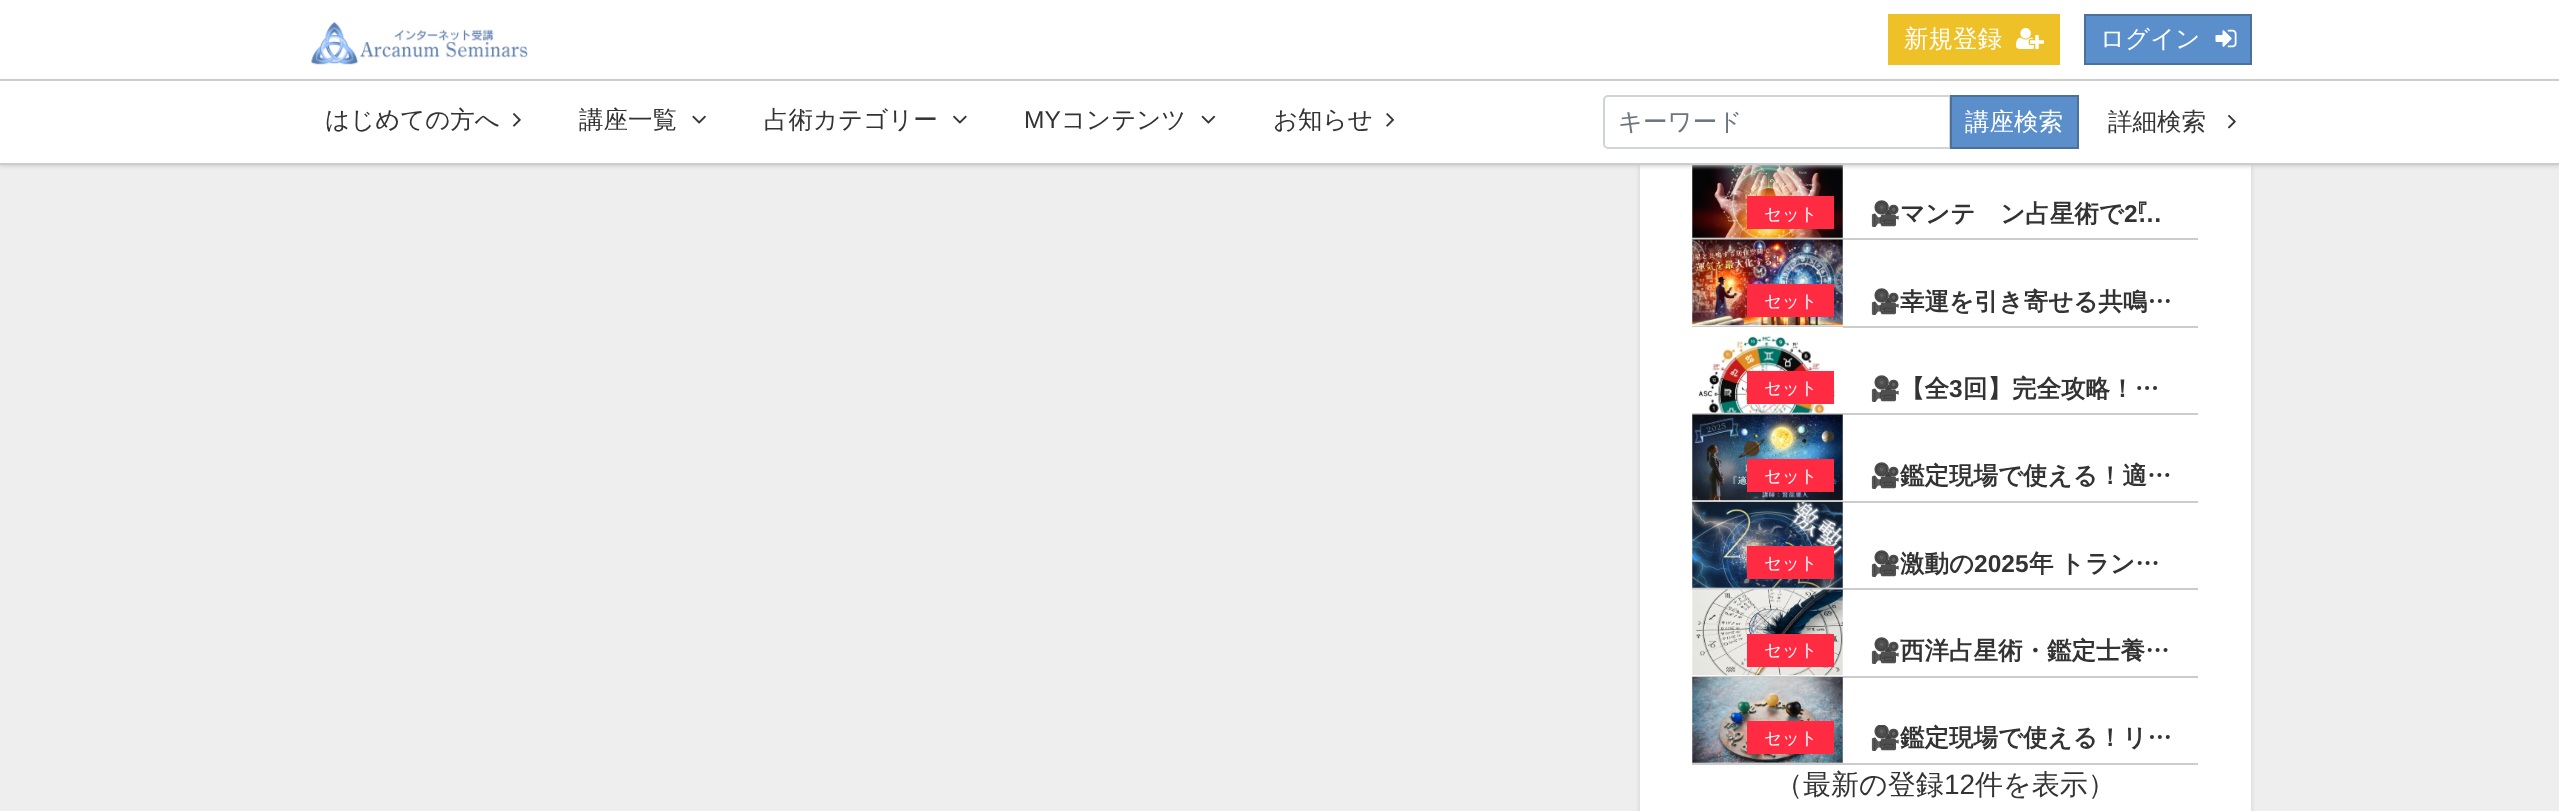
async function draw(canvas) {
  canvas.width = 2559
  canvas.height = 811
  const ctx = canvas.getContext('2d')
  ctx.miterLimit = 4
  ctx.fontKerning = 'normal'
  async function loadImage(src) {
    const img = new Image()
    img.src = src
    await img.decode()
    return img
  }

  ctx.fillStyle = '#eee'
  ctx.fillRect(0, 0, 2559, 811)
  ctx.fillStyle = '#ccc'
  ctx.filter = 'blur(2px)'
  ctx.beginPath()
  ctx.rect(1640, -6, 611, 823)
  ctx.fill()
  ctx.filter = 'none'
  ctx.fillStyle = '#fff'
  ctx.fillRect(0, 0, 2559, 163)
  ctx.fillStyle = '#ccc'
  ctx.fillRect(0, 163, 2559, 2)
  ctx.drawImage(await loadImage('image0.png'), 311, 22, 217, 43)
  ctx.fillStyle = '#efc129'
  ctx.fillRect(1888, 14, 172, 51)
  ctx.font = '500 24.5px WenQuanYi Zen Hei'
  ctx.fillStyle = '#fff'
  ctx.fillText('新規登録', 1904, 47)
  ctx.drawImage(await loadImage('image1.png'), 2016, 28, 28, 21)
  ctx.fillStyle = '#5b8fcb'
  ctx.beginPath()
  ctx.rect(2085, 15, 166, 49)
  ctx.fill()
  ctx.strokeStyle = '#4b709b'
  ctx.lineWidth = 2
  ctx.stroke()
  ctx.fillStyle = '#fff'
  ctx.fillText('ログイン', 2100, 47)
  ctx.drawImage(await loadImage('image2.png'), 2215, 29, 22, 19)
  ctx.fillRect(1640, 165, 611, 646)
  ctx.drawImage(await loadImage('image9.png'), 1692, 165, 151, 73)
  ctx.save()
  ctx.beginPath()
  ctx.moveTo(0, 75)
  ctx.lineTo(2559, 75)
  ctx.lineTo(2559, 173)
  ctx.lineTo(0, 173)
  ctx.closePath()
  ctx.moveTo(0, 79)
  ctx.lineTo(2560, 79)
  ctx.lineTo(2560, 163)
  ctx.lineTo(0, 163)
  ctx.closePath()
  ctx.clip('evenodd')
  ctx.fillStyle = '#ccc'
  ctx.filter = 'blur(2px)'
  ctx.beginPath()
  ctx.rect(0, 82, 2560, 84)
  ctx.fill()
  ctx.filter = 'none'
  ctx.restore()
  ctx.fillStyle = '#ccc'
  ctx.fillRect(0, 79, 2559, 2)
  ctx.fillStyle = '#333'
  ctx.fillText('はじめての方へ', 325, 128)
  ctx.drawImage(await loadImage('image3.png'), 513, 113, 8, 14)
  ctx.fillText('講座一覧', 579, 128)
  ctx.drawImage(await loadImage('image4.png'), 692, 115, 14, 9)
  ctx.fillText('占術カテゴリー', 764, 128)
  ctx.drawImage(await loadImage('image5.png'), 953, 115, 14, 9)
  ctx.font = '24.5px Liberation Sans'
  ctx.fillText('MY', 1024, 128)
  ctx.font = '500 24.5px WenQuanYi Zen Hei'
  ctx.fillText('コンテンツ', 1061, 128)
  ctx.drawImage(await loadImage('image6.png'), 1201, 115, 15, 9)
  ctx.fillText('お知らせ', 1273, 128)
  ctx.drawImage(await loadImage('image7.png'), 1386, 113, 9, 14)
  ctx.beginPath()
  ctx.roundRect(1604, 96, 346, 52, [4, 0, 0, 4])
  ctx.strokeStyle = '#ced4da'
  ctx.stroke()
  ctx.fillStyle = '#6c757d'
  ctx.fillText('キーワード', 1618, 130)
  ctx.fillStyle = '#5b8fcb'
  ctx.beginPath()
  ctx.rect(1951, 96, 127, 52)
  ctx.fill()
  ctx.strokeStyle = '#4b709b'
  ctx.stroke()
  ctx.fillStyle = '#fff'
  ctx.fillText('講座検索', 1965, 130)
  ctx.fillStyle = '#333'
  ctx.fillText('詳細検索', 2108, 130)
  ctx.drawImage(await loadImage('image8.png'), 2228, 114, 8, 15)
  ctx.fillStyle = '#ccc'
  ctx.fillRect(1692, 238, 506, 2)
  ctx.fillStyle = '#ff2b43'
  ctx.fillRect(1747, 196, 87, 33)
  ctx.font = '500 17.5px WenQuanYi Zen Hei'
  ctx.fillStyle = '#fff'
  ctx.fillText('セット', 1764, 220)
  ctx.font = 'bold 24.5px Noto Color Emoji'
  ctx.fillStyle = '#333'
  ctx.fillText('🎥', 1870, 222)
  ctx.font = 'bold 24.5px WenQuanYi Zen Hei'
  ctx.fillText('マンデン占星術で『', 1900, 222)
  ctx.font = 'bold 24.5px Liberation Sans'
  ctx.fillText('2…', 2124, 222)
  ctx.fillStyle = '#ccc'
  ctx.fillRect(1692, 326, 506, 2)
  ctx.drawImage(await loadImage('image10.png'), 1692, 239, 151, 87)
  ctx.fillStyle = '#ff2b43'
  ctx.fillRect(1747, 284, 87, 33)
  ctx.font = '500 17.5px WenQuanYi Zen Hei'
  ctx.fillStyle = '#fff'
  ctx.fillText('セット', 1764, 307)
  ctx.font = 'bold 24.5px Noto Color Emoji'
  ctx.fillStyle = '#333'
  ctx.fillText('🎥', 1870, 310)
  ctx.font = 'bold 24.5px WenQuanYi Zen Hei'
  ctx.fillText('幸運を引き寄せる共鳴…', 1900, 310)
  ctx.fillStyle = '#ccc'
  ctx.fillRect(1692, 413, 506, 2)
  ctx.drawImage(await loadImage('image11.png'), 1692, 327, 151, 86)
  ctx.fillStyle = '#ff2b43'
  ctx.fillRect(1747, 371, 87, 33)
  ctx.font = '500 17.5px WenQuanYi Zen Hei'
  ctx.fillStyle = '#fff'
  ctx.fillText('セット', 1764, 394)
  ctx.font = 'bold 24.5px Noto Color Emoji'
  ctx.fillStyle = '#333'
  ctx.fillText('🎥', 1870, 397)
  ctx.font = 'bold 24.5px WenQuanYi Zen Hei'
  ctx.fillText('【全', 1900, 397)
  ctx.font = 'bold 24.5px Liberation Sans'
  ctx.fillText('3', 1949, 397)
  ctx.font = 'bold 24.5px WenQuanYi Zen Hei'
  ctx.fillText('回】完全攻略！…', 1963, 397)
  ctx.fillStyle = '#ccc'
  ctx.fillRect(1692, 501, 506, 2)
  ctx.drawImage(await loadImage('image12.png'), 1692, 414, 151, 87)
  ctx.fillStyle = '#ff2b43'
  ctx.fillRect(1747, 459, 87, 33)
  ctx.font = '500 17.5px WenQuanYi Zen Hei'
  ctx.fillStyle = '#fff'
  ctx.fillText('セット', 1764, 482)
  ctx.font = 'bold 24.5px Noto Color Emoji'
  ctx.fillStyle = '#333'
  ctx.fillText('🎥', 1870, 484)
  ctx.font = 'bold 24.5px WenQuanYi Zen Hei'
  ctx.fillText('鑑定現場で使える！適…', 1900, 484)
  ctx.fillStyle = '#ccc'
  ctx.fillRect(1692, 588, 506, 2)
  ctx.drawImage(await loadImage('image13.png'), 1692, 502, 151, 86)
  ctx.fillStyle = '#ff2b43'
  ctx.fillRect(1747, 546, 87, 33)
  ctx.font = '500 17.5px WenQuanYi Zen Hei'
  ctx.fillStyle = '#fff'
  ctx.fillText('セット', 1764, 569)
  ctx.font = 'bold 24.5px Noto Color Emoji'
  ctx.fillStyle = '#333'
  ctx.fillText('🎥', 1870, 572)
  ctx.font = 'bold 24.5px WenQuanYi Zen Hei'
  ctx.fillText('激動の', 1900, 572)
  ctx.font = 'bold 24.5px Liberation Sans'
  ctx.fillText('2025', 1974, 572)
  ctx.wordSpacing = '-1px'
  ctx.font = 'bold 24.5px WenQuanYi Zen Hei'
  ctx.fillText('年 トラン…', 2029, 572)
  ctx.fillStyle = '#ccc'
  ctx.fillRect(1692, 676, 506, 2)
  ctx.drawImage(await loadImage('image14.png'), 1692, 589, 151, 87)
  ctx.fillStyle = '#ff2b43'
  ctx.fillRect(1747, 634, 87, 33)
  ctx.wordSpacing = '0px'
  ctx.font = '500 17.5px WenQuanYi Zen Hei'
  ctx.fillStyle = '#fff'
  ctx.fillText('セット', 1764, 656)
  ctx.font = 'bold 24.5px Noto Color Emoji'
  ctx.fillStyle = '#333'
  ctx.fillText('🎥', 1870, 659)
  ctx.font = 'bold 24.5px WenQuanYi Zen Hei'
  ctx.fillText('西洋占星術・鑑定士養…', 1900, 659)
  ctx.fillStyle = '#ccc'
  ctx.fillRect(1692, 763, 506, 2)
  ctx.drawImage(await loadImage('image15.png'), 1692, 677, 151, 86)
  ctx.fillStyle = '#ff2b43'
  ctx.fillRect(1747, 721, 87, 33)
  ctx.font = '500 17.5px WenQuanYi Zen Hei'
  ctx.fillStyle = '#fff'
  ctx.fillText('セット', 1764, 744)
  ctx.save()
  ctx.beginPath()
  ctx.rect(1869, 725, 303, 28)
  ctx.clip()
  ctx.font = 'bold 24.5px Noto Color Emoji'
  ctx.fillStyle = '#333'
  ctx.fillText('🎥', 1870, 746)
  ctx.restore()
  ctx.font = 'bold 24.5px WenQuanYi Zen Hei'
  ctx.fillStyle = '#333'
  ctx.fillText('鑑定現場で使える！リ…', 1900, 746)
  ctx.font = '500 28px WenQuanYi Zen Hei'
  ctx.fillText('（最新の登録', 1775, 794)
  ctx.font = '28px Liberation Sans'
  ctx.fillText('12', 1944, 794)
  ctx.font = '500 28px WenQuanYi Zen Hei'
  ctx.fillText('件を表示）', 1975, 794)
}

draw(document.querySelector('canvas'))
